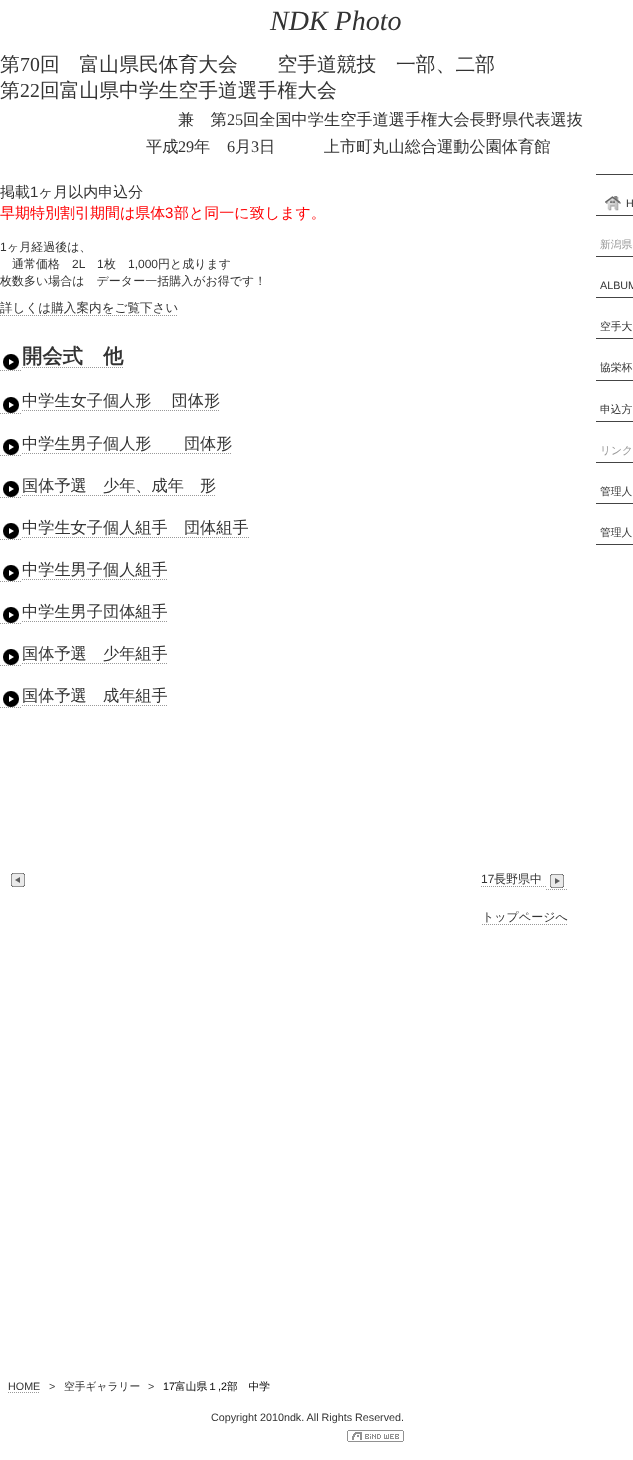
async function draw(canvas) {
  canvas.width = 633
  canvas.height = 1460
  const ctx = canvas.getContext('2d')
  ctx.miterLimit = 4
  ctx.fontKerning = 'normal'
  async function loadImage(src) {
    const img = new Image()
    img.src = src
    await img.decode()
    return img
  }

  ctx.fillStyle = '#fff'
  ctx.fillRect(0, 0, 633, 1460)
  ctx.font = 'italic 28px Liberation Serif'
  ctx.fillStyle = '#333'
  ctx.fillText('NDK Photo', 270, 30)
  ctx.font = '500 19.8px WenQuanYi Zen Hei'
  ctx.fillText('第', 0, 71)
  ctx.font = '19.8px Liberation Serif'
  ctx.fillText('70', 20, 71)
  ctx.font = '500 19.8px WenQuanYi Zen Hei'
  ctx.fillText('回　富山県民体育大会　　空手道競技　一部、二部', 40, 71)
  ctx.fillText('第', 0, 97)
  ctx.font = '19.8px Liberation Serif'
  ctx.fillText('22', 20, 97)
  ctx.font = '500 19.8px WenQuanYi Zen Hei'
  ctx.fillText('回富山県中学生空手道選手権大会', 40, 97)
  ctx.font = '500 16.2px WenQuanYi Zen Hei'
  ctx.fillText('兼　第', 178, 125)
  ctx.font = '16.2px Liberation Serif'
  ctx.fillText('25', 227, 125)
  ctx.font = '500 16.2px WenQuanYi Zen Hei'
  ctx.fillText('回全国中学生空手道選手権大会長野県代表選抜', 243, 125)
  ctx.fillText('平成', 146, 152)
  ctx.font = '16.2px Liberation Serif'
  ctx.fillText('29', 178, 152)
  ctx.font = '500 16.2px WenQuanYi Zen Hei'
  ctx.fillText('年', 194, 152)
  ctx.font = '16.2px Liberation Serif'
  ctx.fillText('6', 227, 152)
  ctx.font = '500 16.2px WenQuanYi Zen Hei'
  ctx.fillText('月', 235, 152)
  ctx.font = '16.2px Liberation Serif'
  ctx.fillText('3', 251, 152)
  ctx.font = '500 16.2px WenQuanYi Zen Hei'
  ctx.fillText('日　　　上市町丸山総合運動公園体育館', 259, 152)
  ctx.font = '500 15px WenQuanYi Zen Hei'
  ctx.fillText('掲載', 0, 197)
  ctx.font = '15px Liberation Sans'
  ctx.fillText('1', 30, 197)
  ctx.font = '500 15px WenQuanYi Zen Hei'
  ctx.fillText('ヶ月以内申込分', 38, 197)
  ctx.fillStyle = '#ff0003'
  ctx.fillText('早期特別割引期間は県体', 0, 218)
  ctx.font = '15px Liberation Sans'
  ctx.fillText('3', 165, 218)
  ctx.font = '500 15px WenQuanYi Zen Hei'
  ctx.fillText('部と同一に致します。', 174, 218)
  ctx.font = '12px Liberation Sans'
  ctx.fillStyle = '#333'
  ctx.fillText('1', 0, 251)
  ctx.font = '500 12px WenQuanYi Zen Hei'
  ctx.fillText('ヶ月経過後は、', 7, 251)
  ctx.fillText('通常価格', 12, 268)
  ctx.font = '12px Liberation Sans'
  ctx.fillText('2L', 72, 268)
  ctx.fillText('1', 97, 268)
  ctx.font = '500 12px WenQuanYi Zen Hei'
  ctx.fillText('枚', 104, 268)
  ctx.font = '12px Liberation Sans'
  ctx.fillText('1,000', 128, 268)
  ctx.font = '500 12px WenQuanYi Zen Hei'
  ctx.fillText('円と成ります', 158, 268)
  ctx.fillText('枚数多い場合は　データー一括購入がお得です！', 0, 285)
  ctx.font = '500 12.6px WenQuanYi Zen Hei'
  ctx.fillText('詳しくは購入案内をご覧下さい', 0, 312)
  ctx.beginPath()
  ctx.moveTo(0, 315.5)
  ctx.lineTo(178, 315.5)
  ctx.strokeStyle = '#999'
  ctx.setLineDash([1, 1])
  ctx.stroke()
  ctx.drawImage(await loadImage('image0.png'), 3, 354, 16, 16)
  ctx.font = 'bold 20.25px WenQuanYi Zen Hei'
  ctx.fillText('開会式　他', 22, 363)
  ctx.beginPath()
  ctx.moveTo(0, 370.5)
  ctx.lineTo(22, 370.5)
  ctx.stroke()
  ctx.beginPath()
  ctx.moveTo(22, 367.5)
  ctx.lineTo(123, 367.5)
  ctx.stroke()
  ctx.drawImage(await loadImage('image0.png'), 3, 397, 16, 16)
  ctx.wordSpacing = '-1px'
  ctx.font = '500 16.2px WenQuanYi Zen Hei'
  ctx.fillText('中学生女子個人形　 団体形', 22, 406)
  ctx.beginPath()
  ctx.moveTo(0, 413.5)
  ctx.lineTo(22, 413.5)
  ctx.stroke()
  ctx.beginPath()
  ctx.moveTo(22, 410.5)
  ctx.lineTo(220, 410.5)
  ctx.stroke()
  ctx.drawImage(await loadImage('image0.png'), 3, 439, 16, 16)
  ctx.wordSpacing = '0px'
  ctx.fillText('中学生男子個人形　　団体形', 22, 449)
  ctx.beginPath()
  ctx.moveTo(0, 455.5)
  ctx.lineTo(22, 455.5)
  ctx.stroke()
  ctx.beginPath()
  ctx.moveTo(22, 453.5)
  ctx.lineTo(232, 453.5)
  ctx.stroke()
  ctx.drawImage(await loadImage('image0.png'), 3, 481, 16, 16)
  ctx.fillText('国体予選　少年、成年　形', 22, 491)
  ctx.beginPath()
  ctx.moveTo(0, 497.5)
  ctx.lineTo(22, 497.5)
  ctx.stroke()
  ctx.beginPath()
  ctx.moveTo(22, 495.5)
  ctx.lineTo(216, 495.5)
  ctx.stroke()
  ctx.drawImage(await loadImage('image0.png'), 3, 523, 16, 16)
  ctx.fillText('中学生女子個人組手　団体組手', 22, 533)
  ctx.beginPath()
  ctx.moveTo(0, 539.5)
  ctx.lineTo(22, 539.5)
  ctx.stroke()
  ctx.beginPath()
  ctx.moveTo(22, 537.5)
  ctx.lineTo(249, 537.5)
  ctx.stroke()
  ctx.drawImage(await loadImage('image0.png'), 3, 565, 16, 16)
  ctx.fillText('中学生男子個人組手', 22, 575)
  ctx.beginPath()
  ctx.moveTo(0, 581.5)
  ctx.lineTo(22, 581.5)
  ctx.stroke()
  ctx.beginPath()
  ctx.moveTo(22, 579.5)
  ctx.lineTo(168, 579.5)
  ctx.stroke()
  ctx.drawImage(await loadImage('image0.png'), 3, 607, 16, 16)
  ctx.fillText('中学生男子団体組手', 22, 617)
  ctx.beginPath()
  ctx.moveTo(0, 623.5)
  ctx.lineTo(22, 623.5)
  ctx.stroke()
  ctx.beginPath()
  ctx.moveTo(22, 621.5)
  ctx.lineTo(168, 621.5)
  ctx.stroke()
  ctx.drawImage(await loadImage('image0.png'), 3, 649, 16, 16)
  ctx.fillText('国体予選　少年組手', 22, 659)
  ctx.beginPath()
  ctx.moveTo(0, 665.5)
  ctx.lineTo(22, 665.5)
  ctx.stroke()
  ctx.beginPath()
  ctx.moveTo(22, 663.5)
  ctx.lineTo(168, 663.5)
  ctx.stroke()
  ctx.drawImage(await loadImage('image0.png'), 3, 691, 16, 16)
  ctx.fillText('国体予選　成年組手', 22, 701)
  ctx.beginPath()
  ctx.moveTo(0, 707.5)
  ctx.lineTo(22, 707.5)
  ctx.stroke()
  ctx.beginPath()
  ctx.moveTo(22, 705.5)
  ctx.lineTo(168, 705.5)
  ctx.stroke()
  ctx.drawImage(await loadImage('image1.png'), 11, 873, 14, 14)
  ctx.font = '12px Liberation Sans'
  ctx.fillText('17', 481, 883)
  ctx.font = '500 12px WenQuanYi Zen Hei'
  ctx.fillText('長野県中', 494, 883)
  ctx.beginPath()
  ctx.moveTo(481, 886.5)
  ctx.lineTo(546, 886.5)
  ctx.stroke()
  ctx.beginPath()
  ctx.moveTo(546, 889.5)
  ctx.lineTo(568, 889.5)
  ctx.stroke()
  ctx.drawImage(await loadImage('image2.png'), 550, 874, 14, 14)
  ctx.fillText('トップページへ', 482, 921)
  ctx.beginPath()
  ctx.moveTo(482, 924.5)
  ctx.lineTo(568, 924.5)
  ctx.stroke()
  ctx.fillStyle = '#444'
  ctx.fillRect(596, 174, 37, 1)
  ctx.fillRect(596, 215, 37, 1)
  ctx.drawImage(await loadImage('image3.png'), 605, 196, 16, 15)
  ctx.font = '10.75px Liberation Sans'
  ctx.fillStyle = '#333'
  ctx.fillText('H', 626, 207)
  ctx.fillStyle = '#444'
  ctx.fillRect(596, 256, 37, 1)
  ctx.font = '500 10.75px WenQuanYi Zen Hei'
  ctx.fillStyle = '#999'
  ctx.fillText('新潟県', 600, 248)
  ctx.fillStyle = '#444'
  ctx.fillRect(596, 297, 37, 1)
  ctx.font = '10.75px Liberation Sans'
  ctx.fillStyle = '#333'
  ctx.fillText('ALBUM', 600, 289)
  ctx.fillStyle = '#444'
  ctx.fillRect(596, 338, 37, 1)
  ctx.font = '500 10.75px WenQuanYi Zen Hei'
  ctx.fillStyle = '#333'
  ctx.fillText('空手大', 600, 330)
  ctx.fillStyle = '#444'
  ctx.fillRect(596, 380, 37, 1)
  ctx.fillStyle = '#333'
  ctx.fillText('協栄杯', 600, 371)
  ctx.fillStyle = '#444'
  ctx.fillRect(596, 421, 37, 1)
  ctx.fillStyle = '#333'
  ctx.fillText('申込方', 600, 413)
  ctx.fillStyle = '#444'
  ctx.fillRect(596, 462, 37, 1)
  ctx.fillStyle = '#999'
  ctx.fillText('リンク', 600, 454)
  ctx.fillStyle = '#444'
  ctx.fillRect(596, 503, 37, 1)
  ctx.fillStyle = '#333'
  ctx.fillText('管理人', 600, 495)
  ctx.fillStyle = '#444'
  ctx.fillRect(596, 544, 37, 1)
  ctx.fillStyle = '#333'
  ctx.fillText('管理人', 600, 536)
  ctx.font = '10.75px Liberation Sans'
  ctx.fillText('HOME', 8, 1390)
  ctx.beginPath()
  ctx.moveTo(8, 1392.5)
  ctx.lineTo(40, 1392.5)
  ctx.stroke()
  ctx.fillText('>', 49, 1390)
  ctx.font = '500 10.75px WenQuanYi Zen Hei'
  ctx.fillText('空手ギャラリー', 64, 1390)
  ctx.font = '10.75px Liberation Sans'
  ctx.fillText('>', 148, 1390)
  ctx.fillStyle = '#000'
  ctx.fillText('17', 163, 1390)
  ctx.font = '500 10.75px WenQuanYi Zen Hei'
  ctx.fillText('富山県１', 175, 1390)
  ctx.font = '10.75px Liberation Sans'
  ctx.fillText(',2', 218, 1390)
  ctx.font = '500 10.75px WenQuanYi Zen Hei'
  ctx.fillText('部　中学', 227, 1390)
  ctx.font = '10.75px Liberation Sans'
  ctx.fillStyle = '#333'
  ctx.fillText('Copyright 2010ndk. All Rights Reserved.', 211, 1421)
  ctx.drawImage(await loadImage('image4.png'), 347, 1430, 57, 12)
}

draw(document.querySelector('canvas'))
